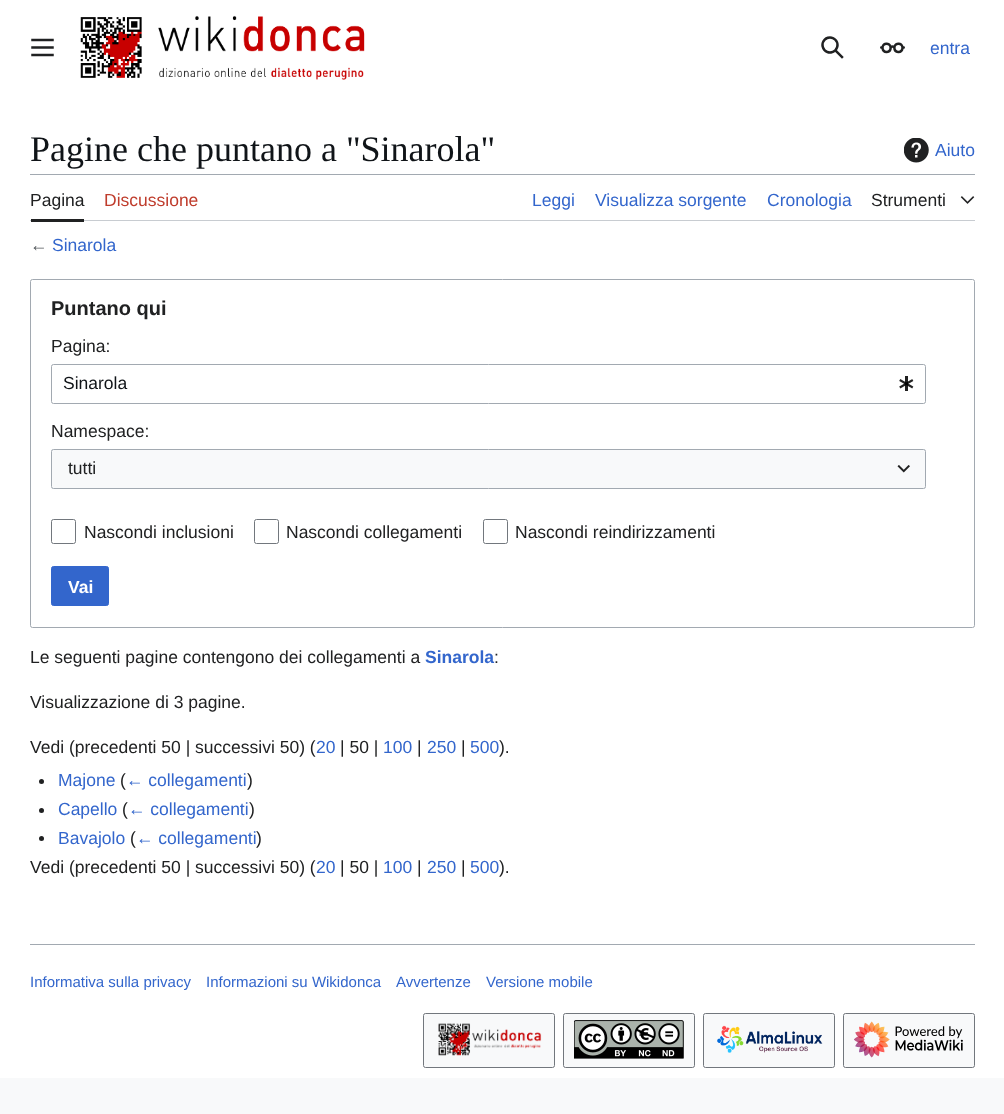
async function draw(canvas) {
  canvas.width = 1004
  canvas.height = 1114
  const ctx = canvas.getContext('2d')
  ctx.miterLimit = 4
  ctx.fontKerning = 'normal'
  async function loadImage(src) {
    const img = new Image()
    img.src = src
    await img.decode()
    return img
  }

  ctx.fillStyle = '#f8f9fa'
  ctx.fillRect(0, 0, 1004, 1114)
  ctx.fillStyle = '#fff'
  ctx.fillRect(0, 0, 1004, 1078)
  ctx.drawImage(await loadImage('image0.png'), 31, 38, 23, 19)
  ctx.drawImage(await loadImage('image1.png'), 80, 17, 62, 61)
  ctx.drawImage(await loadImage('image2.png'), 158, 15, 207, 37)
  ctx.drawImage(await loadImage('image3.png'), 159, 67, 205, 13)
  ctx.drawImage(await loadImage('image4.png'), 821, 36, 23, 23)
  ctx.drawImage(await loadImage('image5.png'), 880, 42, 25, 12)
  ctx.font = '17.5px Liberation Sans'
  ctx.fillStyle = '#36c'
  ctx.fillText('entra', 930, 54)
  ctx.font = '36px Liberation Serif'
  ctx.fillStyle = '#101418'
  ctx.fillText('Pagine che puntano a "Sinarola"', 30, 161)
  ctx.drawImage(await loadImage('image6.png'), 904, 138, 25, 25)
  ctx.font = '17.5px Liberation Sans'
  ctx.fillStyle = '#36c'
  ctx.fillText('Aiuto', 935, 156)
  ctx.fillStyle = '#a2a9b1'
  ctx.fillRect(30, 174, 945, 1)
  ctx.fillStyle = '#c8ccd1'
  ctx.fillRect(30, 220, 945, 1)
  ctx.fillStyle = '#202122'
  ctx.fillRect(31, 219, 53, 3)
  ctx.fillText('Pagina', 30, 206)
  ctx.fillStyle = '#bf3c2c'
  ctx.fillText('Discussione', 104, 206)
  ctx.fillStyle = '#36c'
  ctx.fillText('Leggi', 532, 206)
  ctx.fillText('Visualizza sorgente', 595, 206)
  ctx.fillText('Cronologia', 767, 206)
  ctx.fillStyle = '#202122'
  ctx.fillText('Strumenti', 871, 206)
  ctx.drawImage(await loadImage('image7.png'), 960, 196, 15, 8)
  ctx.fillStyle = '#54595d'
  ctx.fillText('←', 30, 251)
  ctx.fillStyle = '#36c'
  ctx.fillText('Sinarola', 52, 251)
  ctx.beginPath()
  ctx.roundRect(30.5, 279.5, 944, 348, 2)
  ctx.strokeStyle = '#a2a9b1'
  ctx.stroke()
  ctx.font = 'bold 20px Liberation Sans'
  ctx.fillStyle = '#202122'
  ctx.fillText('Puntano qui', 51, 315)
  ctx.font = '17.5px Liberation Sans'
  ctx.fillText('Pagina:', 51, 352)
  ctx.beginPath()
  ctx.roundRect(51.5, 364.5, 874, 39, 2)
  ctx.stroke()
  ctx.fillStyle = '#101418'
  ctx.fillText('Sinarola', 63, 389)
  ctx.drawImage(await loadImage('image8.png'), 899, 376, 15, 15)
  ctx.fillStyle = '#202122'
  ctx.fillText('Namespace:', 51, 437)
  ctx.fillStyle = '#f8f9fa'
  ctx.fillRect(51, 449, 875, 40)
  ctx.beginPath()
  ctx.roundRect(51.5, 449.5, 874, 39, 2)
  ctx.stroke()
  ctx.fillStyle = '#202122'
  ctx.fillText('tutti', 68, 474)
  ctx.drawImage(await loadImage('image9.png'), 897, 465, 13, 8)
  ctx.beginPath()
  ctx.roundRect(51.5, 519.5, 24, 24, 2)
  ctx.strokeStyle = '#72777d'
  ctx.stroke()
  ctx.fillText('Nascondi inclusioni', 84, 538)
  ctx.beginPath()
  ctx.roundRect(254.5, 519.5, 24, 24, 2)
  ctx.stroke()
  ctx.fillText('Nascondi collegamenti', 286, 538)
  ctx.beginPath()
  ctx.roundRect(483.5, 519.5, 24, 24, 2)
  ctx.stroke()
  ctx.fillText('Nascondi reindirizzamenti', 515, 538)
  ctx.fillStyle = '#36c'
  ctx.beginPath()
  ctx.roundRect(51.5, 566.5, 57, 39, 2)
  ctx.fill()
  ctx.strokeStyle = '#36c'
  ctx.stroke()
  ctx.font = 'bold 17.5px Liberation Sans'
  ctx.fillStyle = '#fff'
  ctx.fillText('Vai', 68, 593)
  ctx.font = '17.5px Liberation Sans'
  ctx.fillStyle = '#202122'
  ctx.fillText('Le seguenti pagine contengono dei collegamenti a', 30, 663)
  ctx.font = 'bold 17.5px Liberation Sans'
  ctx.fillStyle = '#36c'
  ctx.fillText('Sinarola', 425, 663)
  ctx.font = '17.5px Liberation Sans'
  ctx.fillStyle = '#202122'
  ctx.fillText(':', 494, 663)
  ctx.fillText('Visualizzazione di 3 pagine.', 30, 708)
  ctx.fillText('Vedi (precedenti 50 | successivi 50) (', 30, 753)
  ctx.fillStyle = '#36c'
  ctx.fillText('20', 316, 753)
  ctx.fillStyle = '#202122'
  ctx.fillText('| 50 |', 340, 753)
  ctx.fillStyle = '#36c'
  ctx.fillText('100', 383, 753)
  ctx.fillStyle = '#202122'
  ctx.fillText('|', 417, 753)
  ctx.fillStyle = '#36c'
  ctx.fillText('250', 427, 753)
  ctx.fillStyle = '#202122'
  ctx.fillText('|', 461, 753)
  ctx.fillStyle = '#36c'
  ctx.fillText('500', 470, 753)
  ctx.fillStyle = '#202122'
  ctx.fillText(').', 499, 753)
  ctx.beginPath()
  ctx.arc(41.5, 781.5, 2.5, 0, 2 * Math.PI)
  ctx.fill()
  ctx.fillStyle = '#36c'
  ctx.fillText('Majone', 58, 786)
  ctx.fillStyle = '#202122'
  ctx.fillText('(', 120, 786)
  ctx.fillStyle = '#36c'
  ctx.fillText('← collegamenti', 126, 786)
  ctx.fillStyle = '#202122'
  ctx.fillText(')', 247, 786)
  ctx.beginPath()
  ctx.arc(41.5, 810.5, 2.5, 0, 2 * Math.PI)
  ctx.fill()
  ctx.fillStyle = '#36c'
  ctx.fillText('Capello', 58, 815)
  ctx.fillStyle = '#202122'
  ctx.fillText('(', 122, 815)
  ctx.fillStyle = '#36c'
  ctx.fillText('← collegamenti', 128, 815)
  ctx.fillStyle = '#202122'
  ctx.fillText(')', 249, 815)
  ctx.beginPath()
  ctx.arc(41.5, 838.5, 2.5, 0, 2 * Math.PI)
  ctx.fill()
  ctx.fillStyle = '#36c'
  ctx.fillText('Bavajolo', 58, 844)
  ctx.fillStyle = '#202122'
  ctx.fillText('(', 130, 844)
  ctx.fillStyle = '#36c'
  ctx.fillText('← collegamenti', 136, 844)
  ctx.fillStyle = '#202122'
  ctx.fillText(')', 256, 844)
  ctx.fillText('Vedi (precedenti 50 | successivi 50) (', 30, 873)
  ctx.fillStyle = '#36c'
  ctx.fillText('20', 316, 873)
  ctx.fillStyle = '#202122'
  ctx.fillText('| 50 |', 340, 873)
  ctx.fillStyle = '#36c'
  ctx.fillText('100', 383, 873)
  ctx.fillStyle = '#202122'
  ctx.fillText('|', 417, 873)
  ctx.fillStyle = '#36c'
  ctx.fillText('250', 427, 873)
  ctx.fillStyle = '#202122'
  ctx.fillText('|', 461, 873)
  ctx.fillStyle = '#36c'
  ctx.fillText('500', 470, 873)
  ctx.fillStyle = '#202122'
  ctx.fillText(').', 499, 873)
  ctx.fillStyle = '#a2a9b1'
  ctx.fillRect(30, 944, 945, 1)
  ctx.font = '15px Liberation Sans'
  ctx.fillStyle = '#36c'
  ctx.fillText('Informativa sulla privacy', 30, 987)
  ctx.fillText('Informazioni su Wikidonca', 206, 987)
  ctx.fillText('Avvertenze', 396, 987)
  ctx.fillText('Versione mobile', 486, 987)
  ctx.fillStyle = '#f8f9fa'
  ctx.beginPath()
  ctx.roundRect(423.5, 1013.5, 131, 54, 2)
  ctx.fill()
  ctx.strokeStyle = '#72777d'
  ctx.stroke()
  ctx.drawImage(await loadImage('image10.png'), 438, 1023, 104, 33)
  ctx.beginPath()
  ctx.roundRect(563.5, 1013.5, 131, 54, 2)
  ctx.fill()
  ctx.stroke()
  ctx.drawImage(await loadImage('image11.png'), 574, 1020, 110, 39)
  ctx.beginPath()
  ctx.roundRect(703.5, 1013.5, 131, 54, 2)
  ctx.fill()
  ctx.stroke()
  ctx.drawImage(await loadImage('image12.png'), 717, 1025, 106, 28)
  ctx.beginPath()
  ctx.roundRect(843.5, 1013.5, 131, 54, 2)
  ctx.fill()
  ctx.stroke()
  ctx.drawImage(await loadImage('image13.png'), 854, 1021, 109, 37)
}

draw(document.querySelector('canvas'))
